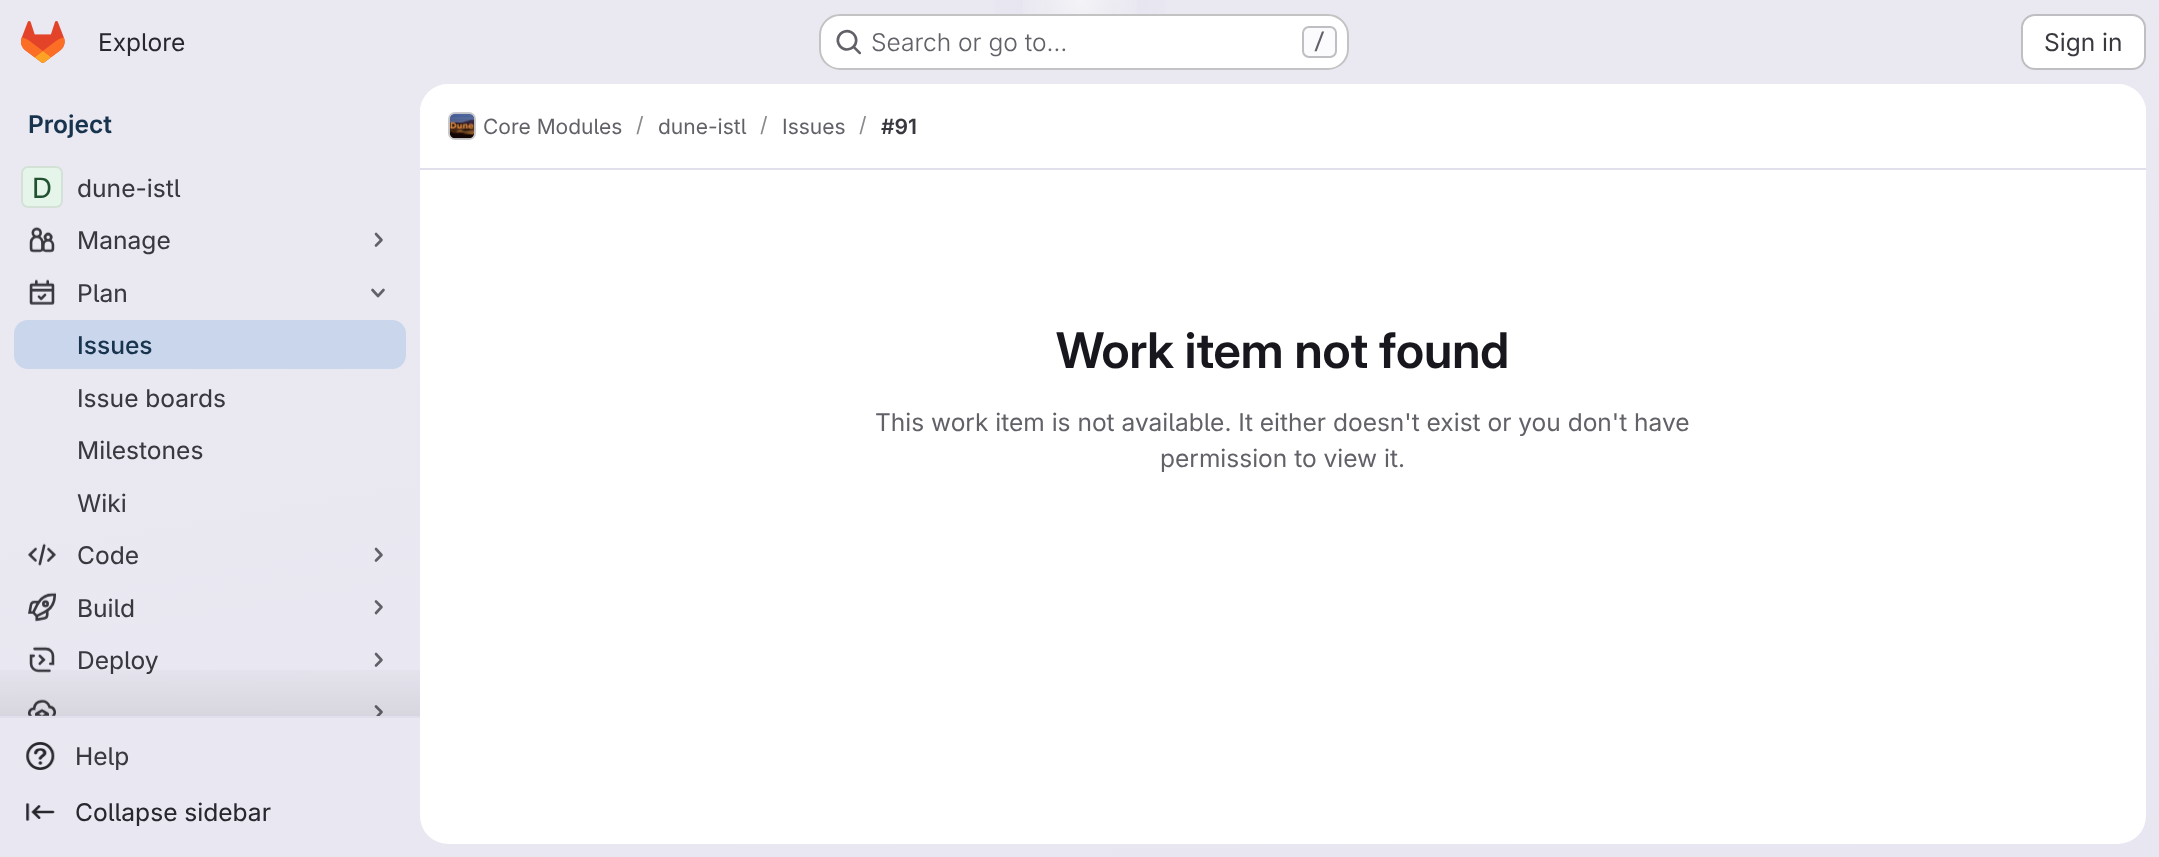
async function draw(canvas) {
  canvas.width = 2159
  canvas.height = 857
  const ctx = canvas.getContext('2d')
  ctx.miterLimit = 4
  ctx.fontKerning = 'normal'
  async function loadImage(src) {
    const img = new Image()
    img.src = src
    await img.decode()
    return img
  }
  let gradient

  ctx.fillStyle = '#fff'
  ctx.fillRect(0, 0, 2159, 857)
  gradient = ctx.createLinearGradient(1186, 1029, 974, -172)
  gradient.addColorStop(0, '#e8e6f0')
  gradient.addColorStop(0.7, '#eae9f2')
  ctx.fillStyle = gradient
  ctx.fillRect(0, 0, 2159, 857)
  gradient = ctx.createRadialGradient(1080, 0, 0, 1080, 0, 1080)
  gradient.addColorStop(0, '#e4e2ed')
  gradient.addColorStop(0.11, '#e4e2ed00')
  ctx.fillStyle = gradient
  ctx.beginPath()
  ctx.rect(995, 0, 170, 68)
  ctx.save()
  ctx.clip()
  ctx.scale(1, 858 / 1080)
  ctx.fillRect(0, 0, 2159, 1079)
  ctx.restore()
  gradient = ctx.createRadialGradient(1080, 0, 0, 1080, 0, 1080)
  gradient.addColorStop(0, '#e4e2ec')
  gradient.addColorStop(0.08, '#e4e2ec00')
  ctx.fillStyle = gradient
  ctx.beginPath()
  ctx.rect(1044, 1, 72, 13)
  ctx.save()
  ctx.clip()
  ctx.scale(1, 858 / 1080)
  ctx.fillRect(0, 0, 2159, 1079)
  ctx.restore()
  gradient = ctx.createRadialGradient(1080, 0, 0, 1080, 0, 1379)
  gradient.addColorStop(0, '#ffffff99')
  gradient.addColorStop(0.05, '#ffffff00')
  ctx.fillStyle = gradient
  ctx.fillRect(1023, 0, 114, 14)
  ctx.drawImage(await loadImage('image0.png'), 21, 21, 44, 42)
  ctx.font = '24.5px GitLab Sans'
  ctx.fillStyle = '#28272d'
  ctx.fillText('Explore', 98, 51)
  ctx.fillStyle = '#fff'
  ctx.beginPath()
  ctx.roundRect(819, 14, 530, 56, 21)
  ctx.fill()
  ctx.beginPath()
  ctx.roundRect(820, 15, 528, 54, 20)
  ctx.strokeStyle = '#0505063d'
  ctx.lineWidth = 2
  ctx.stroke()
  ctx.drawImage(await loadImage('image1.png'), 836, 29, 25, 26)
  ctx.font = '300 24.5px GitLab Sans'
  ctx.fillStyle = '#626168'
  ctx.fillText('Search or go to…', 871, 51)
  ctx.fillStyle = '#fbfafd'
  ctx.beginPath()
  ctx.roundRect(1303, 27, 33, 30, 6)
  ctx.fill()
  ctx.strokeStyle = '#bfbfc3'
  ctx.stroke()
  ctx.font = '500 21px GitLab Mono'
  ctx.fillStyle = '#626168'
  ctx.fillText('/', 1313, 49)
  ctx.fillStyle = '#fff'
  ctx.beginPath()
  ctx.roundRect(2022, 15, 123, 54, 13)
  ctx.fill()
  ctx.stroke()
  ctx.font = '24.5px GitLab Sans'
  ctx.fillStyle = '#3a383f'
  ctx.fillText('Sign in', 2044, 51)
  ctx.font = '600 24.5px "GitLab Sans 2"'
  ctx.fillStyle = '#18334e'
  ctx.fillText('Project', 28, 133)
  ctx.fillStyle = '#e1dfec'
  ctx.fillRect(0, 716, 420, 2)
  ctx.fillStyle = '#fff'
  ctx.beginPath()
  ctx.roundRect(21, 166, 42, 42, 7)
  ctx.fill()
  ctx.fillStyle = '#91d4a83d'
  ctx.beginPath()
  ctx.roundRect(21, 166, 42, 42, 7)
  ctx.fill()
  ctx.beginPath()
  ctx.roundRect(22, 167, 40, 40, 6)
  ctx.strokeStyle = '#05050614'
  ctx.stroke()
  ctx.font = '28px "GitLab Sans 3"'
  ctx.fillStyle = '#225131'
  ctx.fillText('D', 32, 198)
  ctx.font = '24.5px "GitLab Sans 2"'
  ctx.fillStyle = '#3a383f'
  ctx.fillText('dune-istl', 77, 197)
  ctx.drawImage(await loadImage('image2.png'), 29, 226, 26, 27)
  ctx.fillText('Manage', 77, 249)
  ctx.beginPath()
  ctx.moveTo(376, 234)
  ctx.lineTo(381.5, 240)
  ctx.lineTo(376, 245.5)
  ctx.strokeStyle = '#626168'
  ctx.lineWidth = 2.6
  ctx.lineCap = 'round'
  ctx.lineJoin = 'round'
  ctx.stroke()
  ctx.drawImage(await loadImage('image3.png'), 29, 279, 26, 26)
  ctx.fillText('Plan', 77, 302)
  ctx.beginPath()
  ctx.moveTo(383.5, 290)
  ctx.lineTo(378, 296)
  ctx.lineTo(372.5, 290)
  ctx.stroke()
  ctx.fillStyle = '#c9d6eb'
  ctx.beginPath()
  ctx.roundRect(14, 320, 392, 49, 14)
  ctx.fill()
  ctx.font = '500 24.5px GitLab Sans'
  ctx.fillStyle = '#18334e'
  ctx.fillText('Issues', 77, 354)
  ctx.font = '24.5px "GitLab Sans 2"'
  ctx.fillStyle = '#3a383f'
  ctx.fillText('Issue boards', 77, 407)
  ctx.fillText('Milestones', 77, 459)
  ctx.fillText('Wiki', 77, 512)
  ctx.drawImage(await loadImage('image4.png'), 28, 543, 28, 23)
  ctx.fillText('Code', 77, 564)
  ctx.beginPath()
  ctx.moveTo(376, 549)
  ctx.lineTo(381.5, 555)
  ctx.lineTo(376, 560.5)
  ctx.stroke()
  ctx.drawImage(await loadImage('image5.png'), 28, 592, 28, 30)
  ctx.fillText('Build', 77, 617)
  ctx.beginPath()
  ctx.moveTo(376, 601.5)
  ctx.lineTo(381.5, 607)
  ctx.lineTo(376, 613)
  ctx.stroke()
  ctx.drawImage(await loadImage('image6.png'), 29, 646, 26, 27)
  ctx.fillText('Deploy', 77, 669)
  ctx.beginPath()
  ctx.moveTo(376, 654)
  ctx.lineTo(381.5, 660)
  ctx.lineTo(376, 665.5)
  ctx.stroke()
  ctx.drawImage(await loadImage('image7.png'), 28, 699, 28, 17)
  ctx.save()
  ctx.beginPath()
  ctx.rect(364, 698, 28, 18)
  ctx.clip()
  ctx.beginPath()
  ctx.moveTo(376, 706.5)
  ctx.lineTo(381.5, 712)
  ctx.lineTo(376, 718)
  ctx.stroke()
  ctx.restore()
  gradient = ctx.createLinearGradient(210, 653, 210, 716)
  gradient.addColorStop(0, '#05050600')
  gradient.addColorStop(1, '#05050614')
  ctx.fillStyle = gradient
  ctx.fillRect(0, 670, 420, 46)
  ctx.drawImage(await loadImage('image8.png'), 26, 742, 29, 28)
  ctx.fillStyle = '#3a383f'
  ctx.fillText('Help', 75, 765)
  ctx.drawImage(await loadImage('image9.png'), 26, 803, 29, 18)
  ctx.fillStyle = '#28272d'
  ctx.fillText('Collapse sidebar', 75, 821)
  ctx.fillStyle = '#fff'
  ctx.beginPath()
  ctx.roundRect(420, 84, 1726, 760, 28)
  ctx.fill()
  ctx.beginPath()
  ctx.roundRect(420, 84, 1726, 86, [28, 28, 0, 0])
  ctx.fill()
  ctx.fillStyle = '#e1dfec'
  ctx.fillRect(420, 168, 1726, 2)
  ctx.beginPath()
  ctx.roundRect(449, 113, 26, 26, 6)
  ctx.strokeStyle = '#dcdcde'
  ctx.lineWidth = 2
  ctx.lineJoin = 'miter'
  ctx.stroke()
  ctx.drawImage(await loadImage('image10.png'), 449, 113, 26, 26)
  ctx.beginPath()
  ctx.roundRect(449, 113, 26, 26, 6)
  ctx.strokeStyle = '#05050614'
  ctx.stroke()
  ctx.font = '21px GitLab Sans'
  ctx.fillStyle = '#626168'
  ctx.fillText('Core Modules', 483, 134)
  ctx.fillStyle = '#89888d'
  ctx.fillText('/', 636, 132)
  ctx.fillStyle = '#626168'
  ctx.fillText('dune-istl', 658, 134)
  ctx.fillStyle = '#89888d'
  ctx.fillText('/', 760, 132)
  ctx.fillStyle = '#626168'
  ctx.fillText('Issues', 782, 134)
  ctx.fillStyle = '#89888d'
  ctx.fillText('/', 859, 132)
  ctx.font = '600 21px "GitLab Sans 2"'
  ctx.fillStyle = '#3a383f'
  ctx.fillText('#91', 881, 134)
  ctx.font = '600 49px GitLab Sans'
  ctx.fillStyle = '#18171d'
  ctx.fillText('Work item not found', 1056, 368)
  ctx.font = '24.5px GitLab Sans'
  ctx.fillStyle = '#626168'
  ctx.fillText('This work item is not available. It either doesn\'t exist or you don\'t have', 875, 431)
  ctx.fillText('permission to view it.', 1160, 467)
}

draw(document.querySelector('canvas'))
